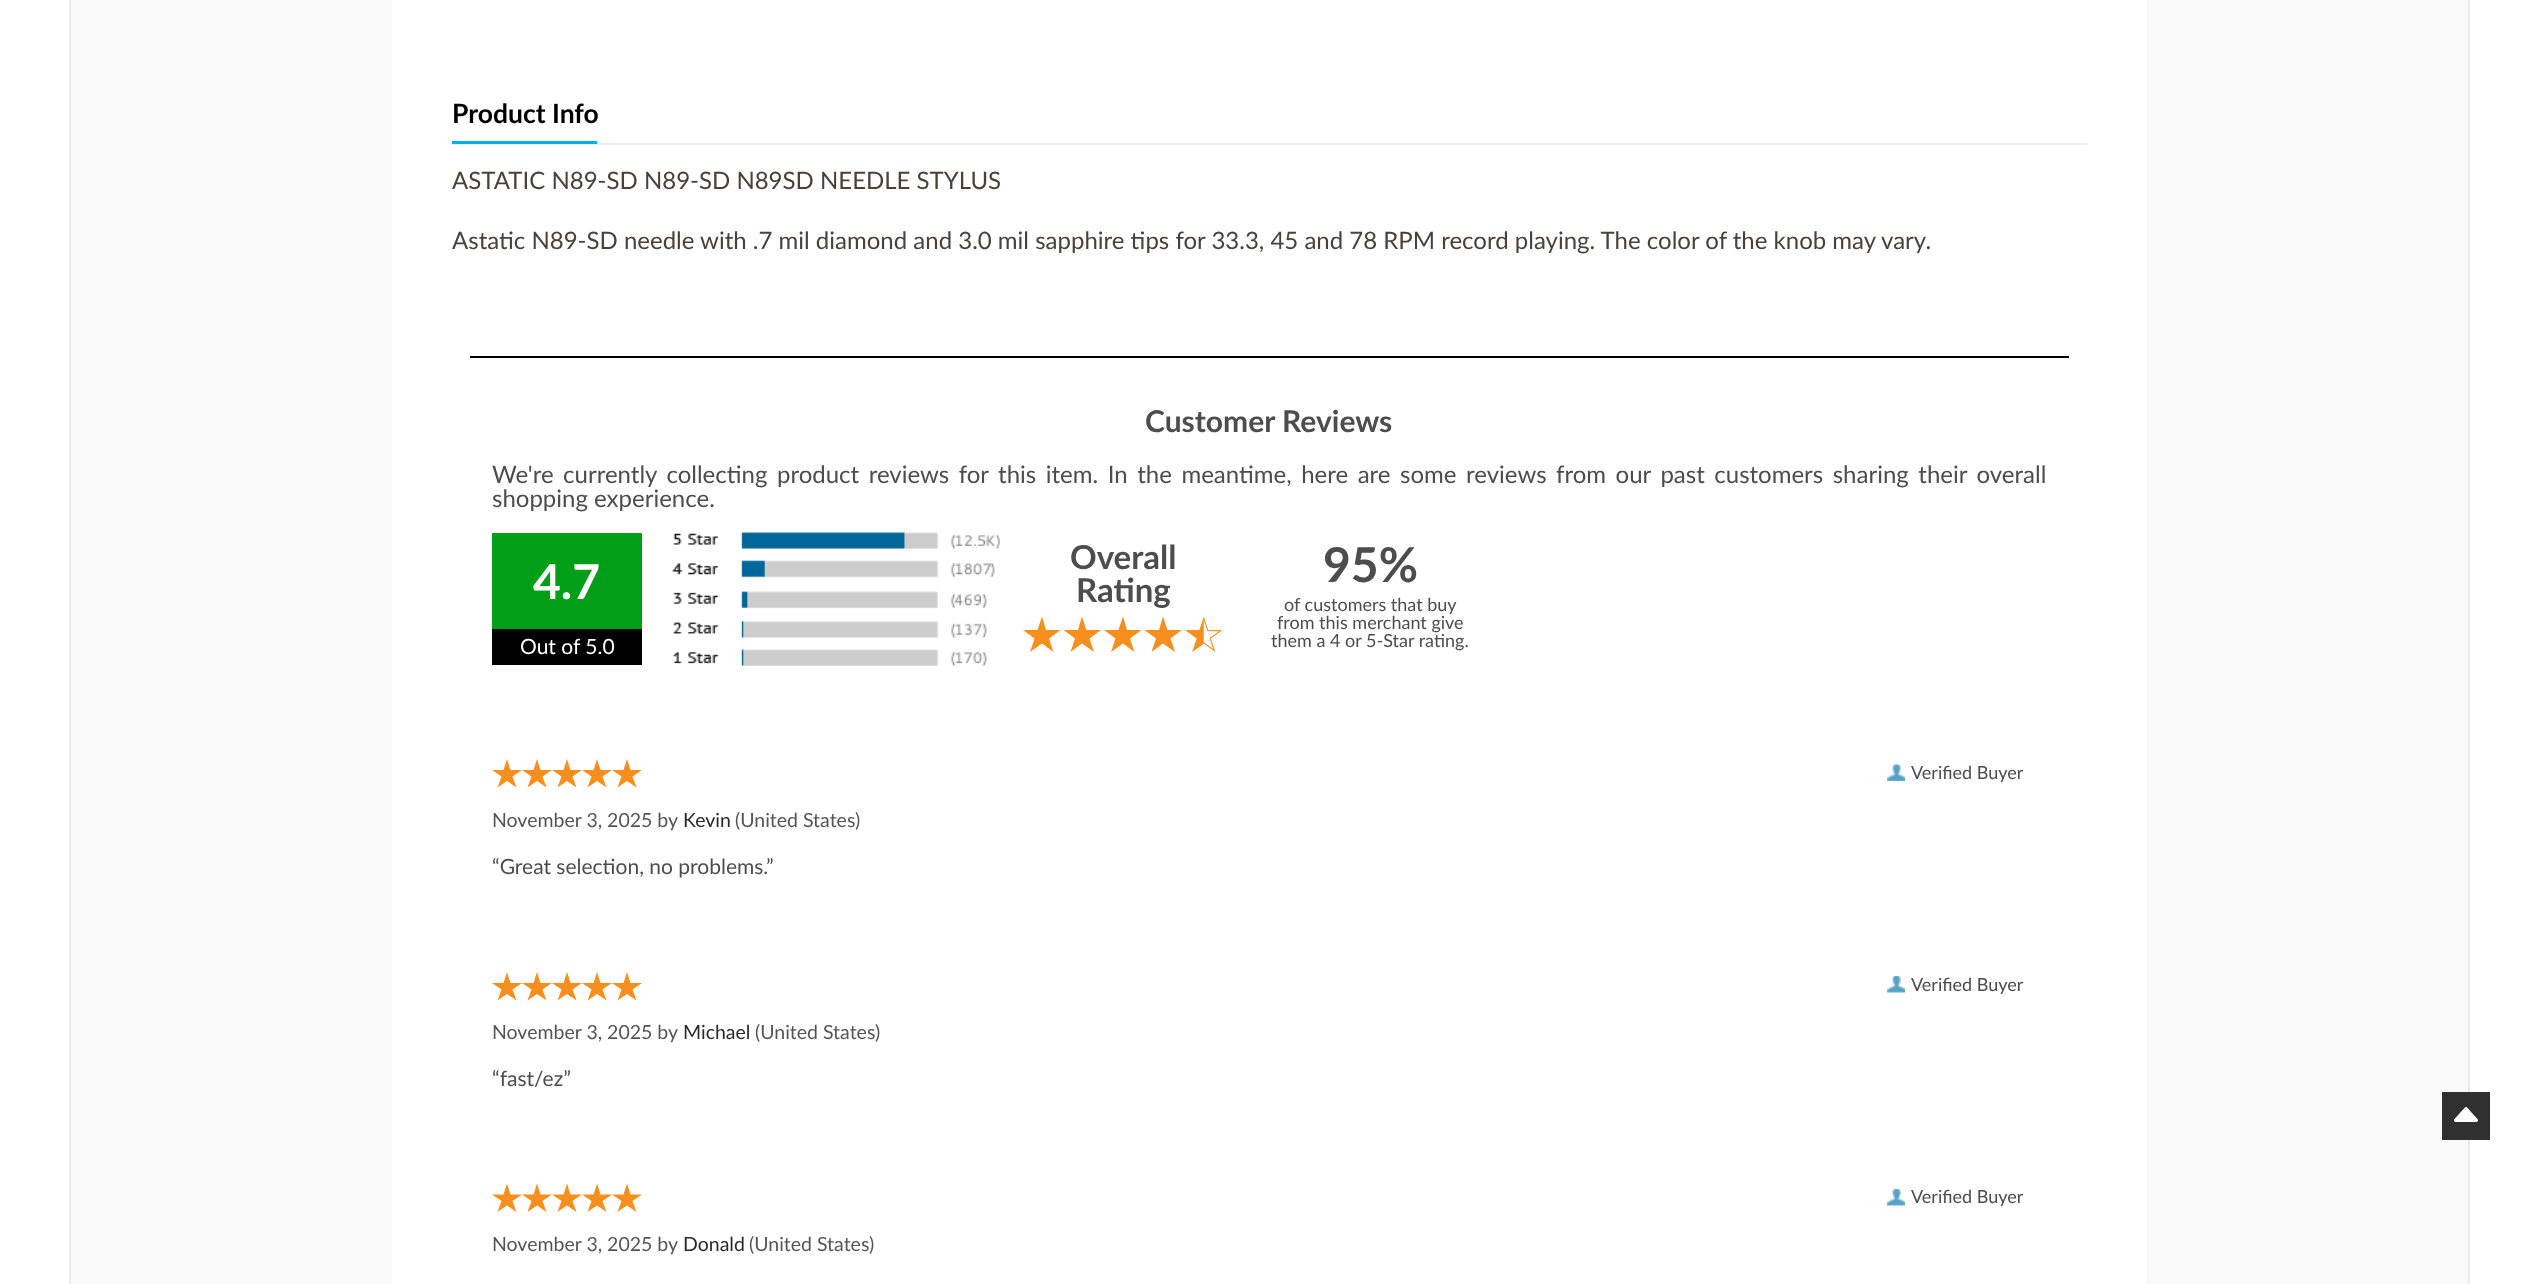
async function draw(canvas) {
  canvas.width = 2538
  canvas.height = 1284
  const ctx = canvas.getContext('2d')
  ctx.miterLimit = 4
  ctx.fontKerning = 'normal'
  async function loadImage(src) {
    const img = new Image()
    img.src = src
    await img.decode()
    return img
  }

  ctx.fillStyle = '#fff'
  ctx.fillRect(0, 0, 2538, 1284)
  ctx.fillStyle = '#f9f9f9'
  ctx.fillRect(71, 0, 2397, 1284)
  ctx.fillStyle = '#ebebeb'
  ctx.fillRect(2468, 0, 2, 1284)
  ctx.fillRect(69, 0, 2, 1284)
  ctx.fillStyle = '#fff'
  ctx.fillRect(392, 0, 1755, 1284)
  ctx.fillStyle = '#eee'
  ctx.fillRect(452, 143, 1635, 2)
  ctx.fillStyle = '#00afec'
  ctx.fillRect(452, 141, 145, 3)
  ctx.font = 'bold 26.5px Lato'
  ctx.fillStyle = '#000'
  ctx.fillText('Product Info', 452, 123)
  ctx.font = '24px Lato'
  ctx.fillStyle = '#4b4138'
  ctx.fillText('ASTATIC N89-SD N89-SD N89SD NEEDLE STYLUS', 452, 189)
  ctx.fillText('Astatic N89-SD needle with .7 mil diamond and 3.0 mil sapphire tips for 33.3, 45 and 78 RPM record playing. The color of the knob may vary.', 452, 249)
  ctx.fillStyle = '#000'
  ctx.fillRect(470, 356, 1599, 2)
  ctx.font = 'bold 30px Lato'
  ctx.fillStyle = '#4d4d4d'
  ctx.fillText('Customer Reviews', 1145, 432)
  ctx.wordSpacing = '3.4px'
  ctx.font = '24px Lato'
  ctx.fillText('We\'re currently collecting product reviews for this item. In the meantime, here are some reviews from our past customers sharing their overall', 492, 483)
  ctx.wordSpacing = '0px'
  ctx.fillText('shopping experience.', 492, 507)
  ctx.fillStyle = '#019f17'
  ctx.fillRect(492, 533, 150, 96)
  ctx.font = 'bold 48px Lato'
  ctx.fillStyle = '#fff'
  ctx.fillText('4.7', 533, 599)
  ctx.fillStyle = '#000'
  ctx.fillRect(492, 629, 150, 36)
  ctx.font = '21px Lato'
  ctx.fillStyle = '#fff'
  ctx.fillText('Out of 5.0', 520, 654)
  ctx.drawImage(await loadImage('image0.png'), 672, 532, 328, 134)
  ctx.font = 'bold 33px Lato'
  ctx.fillStyle = '#4d4d4d'
  ctx.fillText('Overall', 1070, 569)
  ctx.fillText('Rating', 1076, 602)
  ctx.fillStyle = '#f78f1e'
  ctx.beginPath()
  ctx.moveTo(1042, 616.5)
  ctx.lineTo(1046, 630)
  ctx.lineTo(1060.5, 630)
  ctx.lineTo(1049, 638.5)
  ctx.lineTo(1053.5, 652)
  ctx.lineTo(1042, 643.5)
  ctx.lineTo(1030, 652)
  ctx.lineTo(1034.5, 638.5)
  ctx.lineTo(1023, 630)
  ctx.lineTo(1037.5, 630)
  ctx.closePath()
  ctx.fill()
  ctx.beginPath()
  ctx.moveTo(1082, 616.5)
  ctx.lineTo(1086.5, 630)
  ctx.lineTo(1101, 630)
  ctx.lineTo(1089.5, 638.5)
  ctx.lineTo(1094, 652)
  ctx.lineTo(1082, 643.5)
  ctx.lineTo(1070.5, 652)
  ctx.lineTo(1075, 638.5)
  ctx.lineTo(1063.5, 630)
  ctx.lineTo(1078, 630)
  ctx.closePath()
  ctx.fill()
  ctx.beginPath()
  ctx.moveTo(1123, 616.5)
  ctx.lineTo(1127, 630)
  ctx.lineTo(1141.5, 630)
  ctx.lineTo(1130, 638.5)
  ctx.lineTo(1134.5, 652)
  ctx.lineTo(1123, 643.5)
  ctx.lineTo(1111, 652)
  ctx.lineTo(1115.5, 638.5)
  ctx.lineTo(1104, 630)
  ctx.lineTo(1118.5, 630)
  ctx.closePath()
  ctx.fill()
  ctx.beginPath()
  ctx.moveTo(1163, 616.5)
  ctx.lineTo(1167.5, 630)
  ctx.lineTo(1182, 630)
  ctx.lineTo(1170.5, 638.5)
  ctx.lineTo(1175, 652)
  ctx.lineTo(1163, 643.5)
  ctx.lineTo(1151.5, 652)
  ctx.lineTo(1156, 638.5)
  ctx.lineTo(1144.5, 630)
  ctx.lineTo(1159, 630)
  ctx.closePath()
  ctx.fill()
  ctx.drawImage(await loadImage('image1.png'), 1185, 617, 38, 35)
  ctx.font = 'bold 48px Lato'
  ctx.fillStyle = '#4d4d4d'
  ctx.fillText('95%', 1323, 582)
  ctx.font = '18px Lato'
  ctx.fillText('of customers that buy', 1284, 611)
  ctx.fillText('from this merchant give', 1277, 629)
  ctx.fillText('them a 4 or 5-Star rating.', 1271, 647)
  ctx.fillStyle = '#f78f1e'
  ctx.beginPath()
  ctx.moveTo(507, 759)
  ctx.lineTo(510.5, 770)
  ctx.lineTo(522, 770)
  ctx.lineTo(512.5, 776.5)
  ctx.lineTo(516.5, 787.5)
  ctx.lineTo(507, 781)
  ctx.lineTo(497.5, 787.5)
  ctx.lineTo(501.5, 776.5)
  ctx.lineTo(492, 770)
  ctx.lineTo(503.5, 770)
  ctx.closePath()
  ctx.moveTo(537, 759)
  ctx.lineTo(540.5, 770)
  ctx.lineTo(552, 770)
  ctx.lineTo(542.5, 776.5)
  ctx.lineTo(546.5, 787.5)
  ctx.lineTo(537, 781)
  ctx.lineTo(527.5, 787.5)
  ctx.lineTo(531.5, 776.5)
  ctx.lineTo(522, 770)
  ctx.lineTo(533.5, 770)
  ctx.closePath()
  ctx.fill()
  ctx.beginPath()
  ctx.moveTo(567, 759)
  ctx.lineTo(570.5, 770)
  ctx.lineTo(582, 770)
  ctx.lineTo(572.5, 776.5)
  ctx.lineTo(576.5, 787.5)
  ctx.lineTo(567, 781)
  ctx.lineTo(557.5, 787.5)
  ctx.lineTo(561.5, 776.5)
  ctx.lineTo(552, 770)
  ctx.lineTo(563.5, 770)
  ctx.closePath()
  ctx.moveTo(597, 759)
  ctx.lineTo(600.5, 770)
  ctx.lineTo(612, 770)
  ctx.lineTo(602.5, 776.5)
  ctx.lineTo(606.5, 787.5)
  ctx.lineTo(597, 781)
  ctx.lineTo(587.5, 787.5)
  ctx.lineTo(591.5, 776.5)
  ctx.lineTo(582, 770)
  ctx.lineTo(593.5, 770)
  ctx.closePath()
  ctx.fill()
  ctx.beginPath()
  ctx.moveTo(627, 759)
  ctx.lineTo(630.5, 770)
  ctx.lineTo(642, 770)
  ctx.lineTo(632.5, 776.5)
  ctx.lineTo(636.5, 787.5)
  ctx.lineTo(627, 781)
  ctx.lineTo(617.5, 787.5)
  ctx.lineTo(621.5, 776.5)
  ctx.lineTo(612, 770)
  ctx.lineTo(623.5, 770)
  ctx.closePath()
  ctx.fill()
  ctx.drawImage(await loadImage('image2.png'), 1887, 764, 18, 17)
  ctx.fillStyle = '#4d4d4d'
  ctx.fillText('Verified Buyer', 1911, 779)
  ctx.font = '19.5px Lato'
  ctx.fillStyle = '#555'
  ctx.fillText('November 3, 2025 by', 492, 827)
  ctx.fillStyle = '#292929'
  ctx.fillText('Kevin', 683, 827)
  ctx.fillStyle = '#555'
  ctx.fillText('(United States)', 735, 827)
  ctx.font = '21px Lato'
  ctx.fillStyle = '#4d4d4d'
  ctx.fillText('“Great selection, no problems.”', 492, 874)
  ctx.fillStyle = '#f78f1e'
  ctx.beginPath()
  ctx.moveTo(507, 972)
  ctx.lineTo(510.5, 983)
  ctx.lineTo(522, 983)
  ctx.lineTo(512.5, 989.5)
  ctx.lineTo(516.5, 1000.5)
  ctx.lineTo(507, 994)
  ctx.lineTo(497.5, 1000.5)
  ctx.lineTo(501.5, 989.5)
  ctx.lineTo(492, 983)
  ctx.lineTo(503.5, 983)
  ctx.closePath()
  ctx.moveTo(537, 972)
  ctx.lineTo(540.5, 983)
  ctx.lineTo(552, 983)
  ctx.lineTo(542.5, 989.5)
  ctx.lineTo(546.5, 1000.5)
  ctx.lineTo(537, 994)
  ctx.lineTo(527.5, 1000.5)
  ctx.lineTo(531.5, 989.5)
  ctx.lineTo(522, 983)
  ctx.lineTo(533.5, 983)
  ctx.closePath()
  ctx.fill()
  ctx.beginPath()
  ctx.moveTo(567, 972)
  ctx.lineTo(570.5, 983)
  ctx.lineTo(582, 983)
  ctx.lineTo(572.5, 989.5)
  ctx.lineTo(576.5, 1000.5)
  ctx.lineTo(567, 994)
  ctx.lineTo(557.5, 1000.5)
  ctx.lineTo(561.5, 989.5)
  ctx.lineTo(552, 983)
  ctx.lineTo(563.5, 983)
  ctx.closePath()
  ctx.moveTo(597, 972)
  ctx.lineTo(600.5, 983)
  ctx.lineTo(612, 983)
  ctx.lineTo(602.5, 989.5)
  ctx.lineTo(606.5, 1000.5)
  ctx.lineTo(597, 994)
  ctx.lineTo(587.5, 1000.5)
  ctx.lineTo(591.5, 989.5)
  ctx.lineTo(582, 983)
  ctx.lineTo(593.5, 983)
  ctx.closePath()
  ctx.fill()
  ctx.beginPath()
  ctx.moveTo(627, 972)
  ctx.lineTo(630.5, 983)
  ctx.lineTo(642, 983)
  ctx.lineTo(632.5, 989.5)
  ctx.lineTo(636.5, 1000.5)
  ctx.lineTo(627, 994)
  ctx.lineTo(617.5, 1000.5)
  ctx.lineTo(621.5, 989.5)
  ctx.lineTo(612, 983)
  ctx.lineTo(623.5, 983)
  ctx.closePath()
  ctx.fill()
  ctx.drawImage(await loadImage('image3.png'), 1887, 976, 18, 17)
  ctx.font = '18px Lato'
  ctx.fillStyle = '#4d4d4d'
  ctx.fillText('Verified Buyer', 1911, 991)
  ctx.font = '19.5px Lato'
  ctx.fillStyle = '#555'
  ctx.fillText('November 3, 2025 by', 492, 1039)
  ctx.fillStyle = '#292929'
  ctx.fillText('Michael', 683, 1039)
  ctx.fillStyle = '#555'
  ctx.fillText('(United States)', 755, 1039)
  ctx.font = '21px Lato'
  ctx.fillStyle = '#4d4d4d'
  ctx.fillText('“fast/ez”', 492, 1086)
  ctx.fillStyle = '#f78f1e'
  ctx.beginPath()
  ctx.moveTo(507, 1183.5)
  ctx.lineTo(510.5, 1194.5)
  ctx.lineTo(522, 1194.5)
  ctx.lineTo(512.5, 1201)
  ctx.lineTo(516.5, 1212)
  ctx.lineTo(507, 1205.5)
  ctx.lineTo(497.5, 1212)
  ctx.lineTo(501.5, 1201)
  ctx.lineTo(492, 1194.5)
  ctx.lineTo(503.5, 1194.5)
  ctx.closePath()
  ctx.moveTo(537, 1183.5)
  ctx.lineTo(540.5, 1194.5)
  ctx.lineTo(552, 1194.5)
  ctx.lineTo(542.5, 1201)
  ctx.lineTo(546.5, 1212)
  ctx.lineTo(537, 1205.5)
  ctx.lineTo(527.5, 1212)
  ctx.lineTo(531.5, 1201)
  ctx.lineTo(522, 1194.5)
  ctx.lineTo(533.5, 1194.5)
  ctx.closePath()
  ctx.fill()
  ctx.beginPath()
  ctx.moveTo(567, 1183.5)
  ctx.lineTo(570.5, 1194.5)
  ctx.lineTo(582, 1194.5)
  ctx.lineTo(572.5, 1201)
  ctx.lineTo(576.5, 1212)
  ctx.lineTo(567, 1205.5)
  ctx.lineTo(557.5, 1212)
  ctx.lineTo(561.5, 1201)
  ctx.lineTo(552, 1194.5)
  ctx.lineTo(563.5, 1194.5)
  ctx.closePath()
  ctx.moveTo(597, 1183.5)
  ctx.lineTo(600.5, 1194.5)
  ctx.lineTo(612, 1194.5)
  ctx.lineTo(602.5, 1201)
  ctx.lineTo(606.5, 1212)
  ctx.lineTo(597, 1205.5)
  ctx.lineTo(587.5, 1212)
  ctx.lineTo(591.5, 1201)
  ctx.lineTo(582, 1194.5)
  ctx.lineTo(593.5, 1194.5)
  ctx.closePath()
  ctx.fill()
  ctx.beginPath()
  ctx.moveTo(627, 1183.5)
  ctx.lineTo(630.5, 1194.5)
  ctx.lineTo(642, 1194.5)
  ctx.lineTo(632.5, 1201)
  ctx.lineTo(636.5, 1212)
  ctx.lineTo(627, 1205.5)
  ctx.lineTo(617.5, 1212)
  ctx.lineTo(621.5, 1201)
  ctx.lineTo(612, 1194.5)
  ctx.lineTo(623.5, 1194.5)
  ctx.closePath()
  ctx.fill()
  ctx.drawImage(await loadImage('image3.png'), 1887, 1189, 18, 17)
  ctx.font = '18px Lato'
  ctx.fillStyle = '#4d4d4d'
  ctx.fillText('Verified Buyer', 1911, 1203)
  ctx.font = '19.5px Lato'
  ctx.fillStyle = '#555'
  ctx.fillText('November 3, 2025 by', 492, 1251)
  ctx.fillStyle = '#292929'
  ctx.fillText('Donald', 683, 1251)
  ctx.fillStyle = '#555'
  ctx.fillText('(United States)', 749, 1251)
  ctx.fillStyle = '#303030'
  ctx.fillRect(2442, 1092, 48, 48)
  ctx.drawImage(await loadImage('image4.png'), 2454, 1107, 24, 15)
}

draw(document.querySelector('canvas'))
